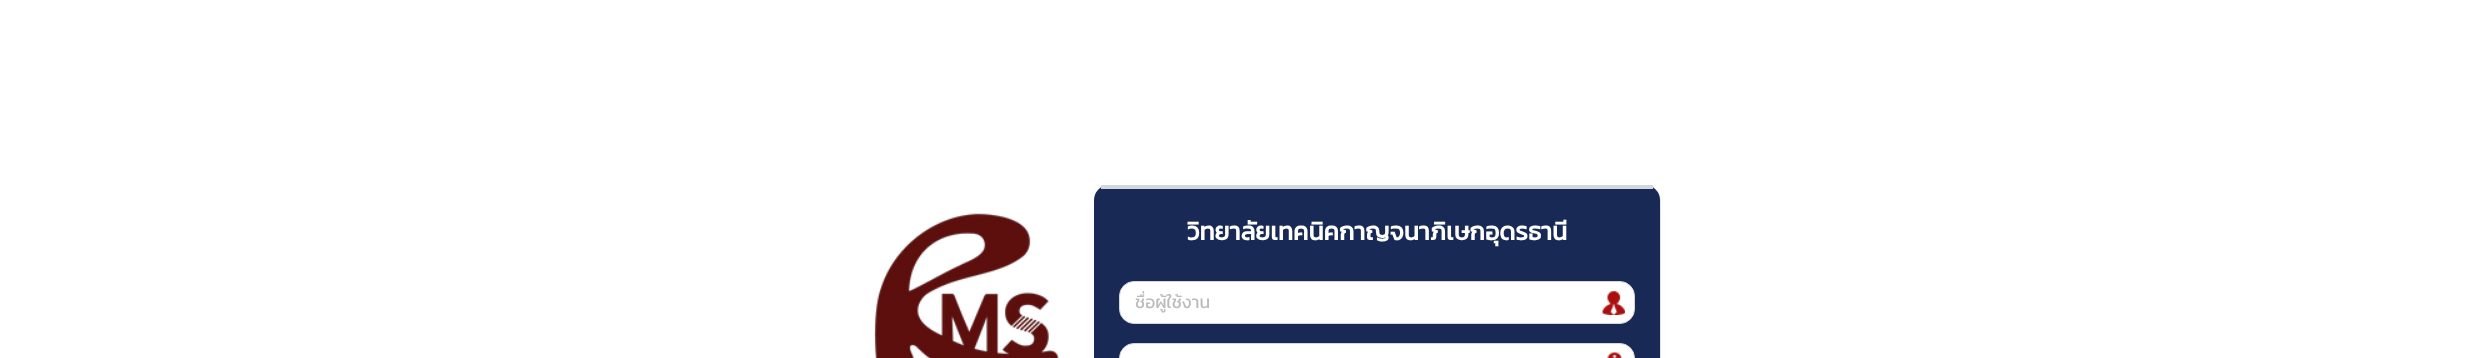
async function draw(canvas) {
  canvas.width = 2470
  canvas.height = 358
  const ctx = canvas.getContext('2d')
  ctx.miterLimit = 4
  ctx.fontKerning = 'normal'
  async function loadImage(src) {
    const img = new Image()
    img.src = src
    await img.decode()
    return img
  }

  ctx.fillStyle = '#fff'
  ctx.fillRect(0, 0, 2470, 358)
  ctx.drawImage(await loadImage('image0.png'), 874, 213, 185, 145)
  ctx.fillStyle = '#0000001a'
  ctx.filter = 'blur(0.5px)'
  ctx.beginPath()
  ctx.roundRect(1095, 186, 566, 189, 15)
  ctx.fill()
  ctx.filter = 'none'
  ctx.fillStyle = '#172954'
  ctx.beginPath()
  ctx.roundRect(1094, 185, 566, 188, 15)
  ctx.fill()
  ctx.fillStyle = '#d2d6de'
  ctx.fillRect(1101, 185, 552, 4)
  ctx.font = 'bold 25px Kanit'
  ctx.fillStyle = '#fff'
  ctx.fillText('วิทยาลัยเทคนิคกาญจนาภิเษกอุดรธานี', 1187, 240)
  ctx.beginPath()
  ctx.roundRect(1119.5, 281.5, 515, 42, 14.5)
  ctx.fill()
  ctx.strokeStyle = '#d2d6de'
  ctx.stroke()
  ctx.save()
  ctx.beginPath()
  ctx.rect(1135, 289, 484, 26)
  ctx.clip()
  ctx.font = '17.5px Kanit'
  ctx.fillStyle = '#bbb'
  ctx.fillText('ชื่อผู้ใช้งาน', 1135, 308)
  ctx.restore()
  ctx.drawImage(await loadImage('image1.png'), 1602, 291, 23, 24)
  ctx.beginPath()
  ctx.roundRect(1119.5, 343.5, 515, 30, 14.5)
  ctx.fill()
  ctx.stroke()
  ctx.drawImage(await loadImage('image2.png'), 1607, 352, 15, 6)
}

draw(document.querySelector('canvas'))
